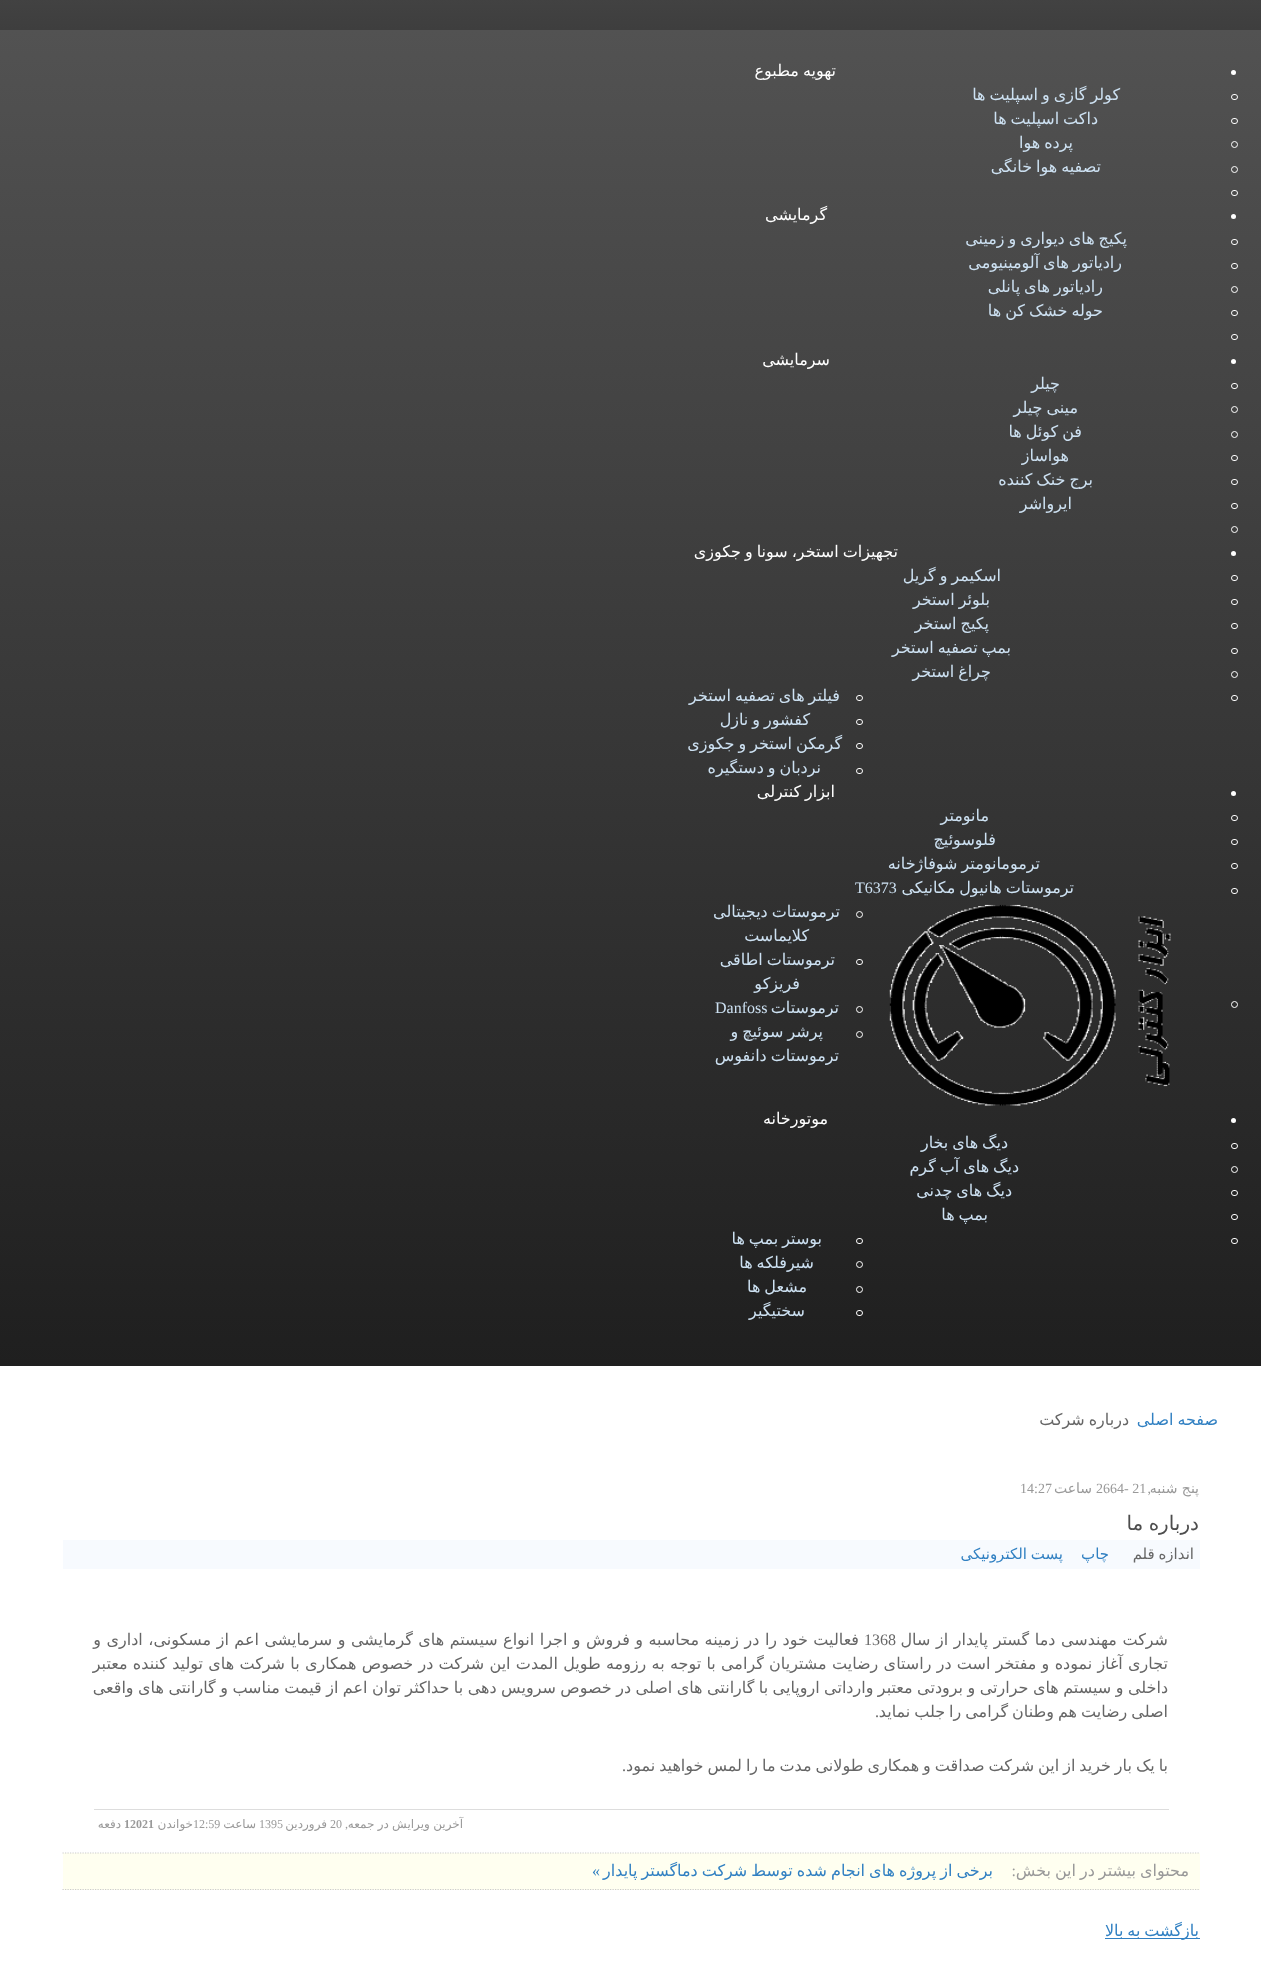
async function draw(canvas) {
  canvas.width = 1261
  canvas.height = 1968
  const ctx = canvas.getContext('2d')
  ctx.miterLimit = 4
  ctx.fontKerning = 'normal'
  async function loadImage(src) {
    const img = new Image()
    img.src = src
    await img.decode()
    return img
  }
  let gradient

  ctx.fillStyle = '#fff'
  ctx.fillRect(0, 0, 1261, 1968)
  gradient = ctx.createLinearGradient(631, -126, 631, 30)
  gradient.addColorStop(0, '#525252')
  gradient.addColorStop(1, '#3e3e3e')
  ctx.fillStyle = gradient
  ctx.fillRect(0, 0, 1261, 30)
  gradient = ctx.createLinearGradient(631, 30, 631, 1366)
  gradient.addColorStop(0, '#525252')
  gradient.addColorStop(1, '#1f1f1f')
  ctx.fillStyle = gradient
  ctx.fillRect(0, 30, 1261, 1336)
  ctx.fillStyle = '#fff'
  ctx.beginPath()
  ctx.arc(1233.5, 72.5, 2.5, 0, 2 * Math.PI)
  ctx.fill()
  ctx.wordSpacing = '-1.1px'
  ctx.direction = 'rtl'
  ctx.font = '16px DejaVu Sans'
  ctx.fillText('تهویه مطبوع', 836, 76)
  ctx.beginPath()
  ctx.roundRect(1231.5, 94.5, 6, 5, 2.5)
  ctx.strokeStyle = '#fff'
  ctx.stroke()
  ctx.fillStyle = '#cde1f2'
  ctx.fillText('کولر گازی و اسپلیت ها', 1120, 100)
  ctx.beginPath()
  ctx.roundRect(1231.5, 118.5, 6, 5, 2.5)
  ctx.stroke()
  ctx.fillText('داکت اسپلیت ها', 1098, 124)
  ctx.beginPath()
  ctx.arc(1234.5, 144.5, 3, 0, 2 * Math.PI)
  ctx.stroke()
  ctx.fillText('پرده هوا', 1073, 148)
  ctx.beginPath()
  ctx.arc(1234.5, 169.5, 3, 0, 2 * Math.PI)
  ctx.stroke()
  ctx.fillText('تصفیه هوا خانگی', 1101, 172)
  ctx.beginPath()
  ctx.roundRect(1231.5, 190.5, 6, 5, 2.5)
  ctx.stroke()
  ctx.fillStyle = '#fff'
  ctx.beginPath()
  ctx.arc(1233.5, 216.5, 2.5, 0, 2 * Math.PI)
  ctx.fill()
  ctx.wordSpacing = '0px'
  ctx.fillText('گرمایشی', 827, 220)
  ctx.beginPath()
  ctx.roundRect(1231.5, 239.5, 6, 5, 2.5)
  ctx.stroke()
  ctx.wordSpacing = '-1.1px'
  ctx.fillStyle = '#cde1f2'
  ctx.fillText('پکیج های دیواری و زمینی', 1127, 244)
  ctx.beginPath()
  ctx.roundRect(1231.5, 263.5, 6, 5, 2.5)
  ctx.stroke()
  ctx.fillText('رادیاتور های آلومینیومی', 1122, 268)
  ctx.beginPath()
  ctx.arc(1234.5, 289.5, 3, 0, 2 * Math.PI)
  ctx.stroke()
  ctx.fillText('رادیاتور های پانلی', 1103, 292)
  ctx.beginPath()
  ctx.roundRect(1231.5, 310.5, 6, 5, 2.5)
  ctx.stroke()
  ctx.fillText('حوله خشک کن ها', 1103, 316)
  ctx.beginPath()
  ctx.roundRect(1231.5, 334.5, 6, 5, 2.5)
  ctx.stroke()
  ctx.fillStyle = '#fff'
  ctx.beginPath()
  ctx.arc(1233.5, 361.5, 2.5, 0, 2 * Math.PI)
  ctx.fill()
  ctx.wordSpacing = '0px'
  ctx.fillText('سرمایشی', 830, 365)
  ctx.beginPath()
  ctx.roundRect(1231.5, 383.5, 6, 5, 2.5)
  ctx.stroke()
  ctx.fillStyle = '#cde1f2'
  ctx.fillText('چیلر', 1060, 389)
  ctx.beginPath()
  ctx.arc(1234.5, 409.5, 3, 0, 2 * Math.PI)
  ctx.stroke()
  ctx.wordSpacing = '-1.1px'
  ctx.fillText('مینی چیلر', 1078, 413)
  ctx.beginPath()
  ctx.arc(1234.5, 434.5, 3, 0, 2 * Math.PI)
  ctx.stroke()
  ctx.fillText('فن کوئل ها', 1082, 437)
  ctx.beginPath()
  ctx.roundRect(1231.5, 455.5, 6, 5, 2.5)
  ctx.stroke()
  ctx.wordSpacing = '0px'
  ctx.fillText('هواساز', 1069, 461)
  ctx.beginPath()
  ctx.roundRect(1231.5, 479.5, 6, 5, 2.5)
  ctx.stroke()
  ctx.wordSpacing = '-1.1px'
  ctx.fillText('برج خنک کننده', 1093, 485)
  ctx.beginPath()
  ctx.roundRect(1231.5, 503.5, 6, 5, 2.5)
  ctx.stroke()
  ctx.wordSpacing = '0px'
  ctx.fillText('ایرواشر', 1072, 509)
  ctx.beginPath()
  ctx.arc(1234.5, 529.5, 3, 0, 2 * Math.PI)
  ctx.stroke()
  ctx.fillStyle = '#fff'
  ctx.beginPath()
  ctx.arc(1233.5, 553.5, 2.5, 0, 2 * Math.PI)
  ctx.fill()
  ctx.wordSpacing = '-1.1px'
  ctx.fillText('تجهیزات استخر، سونا و جکوزی', 898, 557)
  ctx.beginPath()
  ctx.roundRect(1231.5, 575.5, 6, 5, 2.5)
  ctx.stroke()
  ctx.fillStyle = '#cde1f2'
  ctx.fillText('اسکیمر و گریل', 1001, 581)
  ctx.beginPath()
  ctx.roundRect(1231.5, 599.5, 6, 5, 2.5)
  ctx.stroke()
  ctx.fillText('بلوئر استخر', 990, 605)
  ctx.beginPath()
  ctx.roundRect(1231.5, 623.5, 6, 5, 2.5)
  ctx.stroke()
  ctx.fillText('پکیج استخر', 989, 629)
  ctx.beginPath()
  ctx.roundRect(1231.5, 648.5, 6, 5, 2.5)
  ctx.stroke()
  ctx.fillText('بمپ تصفیه استخر', 1011, 653)
  ctx.beginPath()
  ctx.arc(1234.5, 674.5, 3, 0, 2 * Math.PI)
  ctx.stroke()
  ctx.fillText('چراغ استخر', 991, 677)
  ctx.beginPath()
  ctx.roundRect(1231.5, 695.5, 6, 5, 2.5)
  ctx.stroke()
  ctx.beginPath()
  ctx.roundRect(856.5, 695.5, 6, 5, 2.5)
  ctx.stroke()
  ctx.fillText('فیلتر های تصفیه استخر', 840, 701)
  ctx.beginPath()
  ctx.roundRect(856.5, 719.5, 6, 5, 2.5)
  ctx.stroke()
  ctx.fillText('کفشور و نازل', 810, 725)
  ctx.beginPath()
  ctx.roundRect(856.5, 743.5, 6, 5, 2.5)
  ctx.stroke()
  ctx.fillText('گرمکن استخر و جکوزی', 842, 749)
  ctx.beginPath()
  ctx.roundRect(856.5, 768.5, 6, 5, 2.5)
  ctx.stroke()
  ctx.fillText('نردبان و دستگیره', 821, 773)
  ctx.fillStyle = '#fff'
  ctx.beginPath()
  ctx.arc(1233.5, 793.5, 2.5, 0, 2 * Math.PI)
  ctx.fill()
  ctx.fillText('ابزار کنترلی', 835, 797)
  ctx.beginPath()
  ctx.roundRect(1231.5, 815.5, 6, 5, 2.5)
  ctx.stroke()
  ctx.wordSpacing = '0px'
  ctx.fillStyle = '#cde1f2'
  ctx.fillText('مانومتر', 989, 821)
  ctx.beginPath()
  ctx.roundRect(1231.5, 839.5, 6, 5, 2.5)
  ctx.stroke()
  ctx.fillText('فلوسوئیچ', 996, 845)
  ctx.beginPath()
  ctx.roundRect(1231.5, 863.5, 6, 5, 2.5)
  ctx.stroke()
  ctx.wordSpacing = '-1.1px'
  ctx.fillText('ترمومانومتر شوفاژخانه', 1040, 869)
  ctx.beginPath()
  ctx.roundRect(1231.5, 888.5, 6, 5, 2.5)
  ctx.stroke()
  ctx.fillText('ترموستات هانیول مکانیکی', 1074, 893)
  ctx.wordSpacing = '0px'
  ctx.direction = 'ltr'
  ctx.font = '16px Liberation Serif'
  ctx.fillText('T6373', 855, 893)
  ctx.beginPath()
  ctx.arc(1234.5, 1004.5, 3, 0, 2 * Math.PI)
  ctx.stroke()
  ctx.drawImage(await loadImage('image0.png'), 889, 904, 282, 202)
  ctx.beginPath()
  ctx.arc(859.5, 914.5, 3, 0, 2 * Math.PI)
  ctx.stroke()
  ctx.wordSpacing = '-1.1px'
  ctx.direction = 'rtl'
  ctx.font = '16px DejaVu Sans'
  ctx.fillText('ترموستات دیجیتالی', 840, 917)
  ctx.wordSpacing = '0px'
  ctx.fillText('کلایماست', 809, 941)
  ctx.beginPath()
  ctx.roundRect(856.5, 959.5, 6, 5, 2.5)
  ctx.stroke()
  ctx.wordSpacing = '-1.1px'
  ctx.fillText('ترموستات اطاقی', 835, 965)
  ctx.wordSpacing = '0px'
  ctx.fillText('فریزکو', 800, 989)
  ctx.beginPath()
  ctx.arc(859.5, 1009.5, 3, 0, 2 * Math.PI)
  ctx.stroke()
  ctx.fillText('ترموستات', 839, 1013)
  ctx.direction = 'ltr'
  ctx.font = '16px Liberation Serif'
  ctx.fillText('Danfoss', 715, 1013)
  ctx.beginPath()
  ctx.arc(859.5, 1034.5, 3, 0, 2 * Math.PI)
  ctx.stroke()
  ctx.wordSpacing = '-1.1px'
  ctx.direction = 'rtl'
  ctx.font = '16px DejaVu Sans'
  ctx.fillText('پرشر سوئیچ و', 823, 1037)
  ctx.fillText('ترموستات دانفوس', 839, 1061)
  ctx.fillStyle = '#fff'
  ctx.beginPath()
  ctx.arc(1233.5, 1120.5, 2.5, 0, 2 * Math.PI)
  ctx.fill()
  ctx.wordSpacing = '0px'
  ctx.fillText('موتورخانه', 828, 1124)
  ctx.beginPath()
  ctx.roundRect(1231.5, 1143.5, 6, 5, 2.5)
  ctx.stroke()
  ctx.wordSpacing = '-1.1px'
  ctx.fillStyle = '#cde1f2'
  ctx.fillText('دیگ های بخار', 1008, 1148)
  ctx.beginPath()
  ctx.arc(1234.5, 1169.5, 3, 0, 2 * Math.PI)
  ctx.stroke()
  ctx.fillText('دیگ های آب گرم', 1019, 1172)
  ctx.beginPath()
  ctx.roundRect(1231.5, 1190.5, 6, 5, 2.5)
  ctx.stroke()
  ctx.fillText('دیگ های چدنی', 1012, 1196)
  ctx.beginPath()
  ctx.roundRect(1231.5, 1214.5, 6, 5, 2.5)
  ctx.stroke()
  ctx.fillText('بمپ ها', 988, 1220)
  ctx.beginPath()
  ctx.roundRect(1231.5, 1238.5, 6, 5, 2.5)
  ctx.stroke()
  ctx.beginPath()
  ctx.roundRect(856.5, 1238.5, 6, 5, 2.5)
  ctx.stroke()
  ctx.fillText('بوستر بمپ ها', 822, 1244)
  ctx.beginPath()
  ctx.arc(859.5, 1264.5, 3, 0, 2 * Math.PI)
  ctx.stroke()
  ctx.fillText('شیرفلکه ها', 814, 1268)
  ctx.beginPath()
  ctx.arc(859.5, 1289.5, 3, 0, 2 * Math.PI)
  ctx.stroke()
  ctx.fillText('مشعل ها', 807, 1292)
  ctx.beginPath()
  ctx.roundRect(856.5, 1310.5, 6, 5, 2.5)
  ctx.stroke()
  ctx.wordSpacing = '0px'
  ctx.fillText('سختیگیر', 805, 1316)
  ctx.wordSpacing = '-1.1px'
  ctx.fillStyle = '#3180c2'
  ctx.fillText('صفحه اصلی', 1218, 1425)
  ctx.fillStyle = '#666'
  ctx.fillText('درباره شرکت', 1129, 1425)
  ctx.wordSpacing = '0px'
  ctx.font = '14px DejaVu Sans'
  ctx.fillStyle = '#999'
  ctx.fillText('پنج شنبه', 1199, 1493)
  ctx.font = '14px Liberation Serif'
  ctx.fillText(',', 1151, 1493)
  ctx.direction = 'ltr'
  ctx.fillText('2664- 21', 1096, 1493)
  ctx.direction = 'rtl'
  ctx.font = '14px DejaVu Sans'
  ctx.fillText('ساعت', 1092, 1493)
  ctx.direction = 'ltr'
  ctx.font = '14px Liberation Serif'
  ctx.fillText('14:27', 1020, 1493)
  ctx.wordSpacing = '-1px'
  ctx.direction = 'rtl'
  ctx.font = '20px DejaVu Sans'
  ctx.fillStyle = '#4d4d4d'
  ctx.fillText('درباره ما', 1199, 1530)
  ctx.fillStyle = '#f7fafe'
  ctx.fillRect(63, 1540, 1137, 29)
  ctx.font = '15px DejaVu Sans'
  ctx.fillStyle = '#666'
  ctx.fillText('اندازه قلم', 1194, 1559)
  ctx.wordSpacing = '0px'
  ctx.fillStyle = '#3180c2'
  ctx.fillText('چاپ', 1109, 1559)
  ctx.wordSpacing = '-1px'
  ctx.fillText('پست الکترونیکی', 1063, 1559)
  ctx.wordSpacing = '0.5px'
  ctx.font = '16px DejaVu Sans'
  ctx.fillStyle = '#666'
  ctx.fillText('شرکت مهندسی دما گستر پایدار از سال', 1168, 1645)
  ctx.wordSpacing = '0px'
  ctx.direction = 'ltr'
  ctx.font = '16px Liberation Serif'
  ctx.fillText('1368', 864, 1645)
  ctx.wordSpacing = '0.4px'
  ctx.direction = 'rtl'
  ctx.font = '16px DejaVu Sans'
  ctx.fillText('فعالیت خود را در زمینه محاسبه و فروش و اجرا انواع سیستم های گرمایشی و سرمایشی اعم از مسکونی، اداری و', 859, 1645)
  ctx.wordSpacing = '0.2px'
  ctx.fillText('تجاری آغاز نموده و مفتخر است در راستای رضایت مشتریان گرامی با توجه به رزومه طویل المدت این شرکت در خصوص همکاری با شرکت های تولید کننده معتبر', 1168, 1669)
  ctx.wordSpacing = '-0.6px'
  ctx.fillText('داخلی و سیستم های حرارتی و برودتی معتبر وارداتی اروپایی با گارانتی های اصلی در خصوص سرویس دهی با حداکثر توان اعم از قیمت مناسب و گارانتی های واقعی', 1168, 1693)
  ctx.wordSpacing = '-1.1px'
  ctx.fillText('اصلی رضایت هم وطنان گرامی را جلب نماید', 1168, 1717)
  ctx.wordSpacing = '0px'
  ctx.font = '16px Liberation Serif'
  ctx.fillText('.', 879, 1717)
  ctx.wordSpacing = '-1.1px'
  ctx.font = '16px DejaVu Sans'
  ctx.fillText('با یک بار خرید از این شرکت صداقت و همکاری طولانی مدت ما را لمس خواهید نمود', 1168, 1771)
  ctx.wordSpacing = '0px'
  ctx.font = '16px Liberation Serif'
  ctx.fillText('.', 626, 1771)
  ctx.fillStyle = '#ddd'
  ctx.fillRect(94, 1809, 1075, 1)
  ctx.wordSpacing = '-0.5px'
  ctx.font = '12px DejaVu Sans'
  ctx.fillStyle = '#999'
  ctx.fillText('آخرین ویرایش در جمعه', 463, 1828)
  ctx.wordSpacing = '0px'
  ctx.font = '12px Liberation Serif'
  ctx.fillText(',', 348, 1828)
  ctx.direction = 'ltr'
  ctx.fillText('20', 330, 1828)
  ctx.direction = 'rtl'
  ctx.font = '12px DejaVu Sans'
  ctx.fillText('فروردين', 327, 1828)
  ctx.direction = 'ltr'
  ctx.font = '12px Liberation Serif'
  ctx.fillText('1395', 259, 1828)
  ctx.direction = 'rtl'
  ctx.font = '12px DejaVu Sans'
  ctx.fillText('ساعت', 256, 1828)
  ctx.direction = 'ltr'
  ctx.font = '12px Liberation Serif'
  ctx.fillText('12:59', 193, 1828)
  ctx.direction = 'rtl'
  ctx.font = '12px DejaVu Sans'
  ctx.fillText('خواندن', 193, 1828)
  ctx.direction = 'ltr'
  ctx.font = 'bold 12px Liberation Serif'
  ctx.fillText('12021', 124, 1828)
  ctx.direction = 'rtl'
  ctx.font = '12px DejaVu Sans'
  ctx.fillText('دفعه', 121, 1828)
  ctx.fillStyle = '#fffff0'
  ctx.fillRect(63, 1853, 1137, 37)
  ctx.beginPath()
  ctx.moveTo(62.5, 1853)
  ctx.lineTo(1200, 1853)
  ctx.strokeStyle = '#ccc'
  ctx.lineWidth = 1.2
  ctx.setLineDash([1.25, 1.25])
  ctx.stroke()
  ctx.beginPath()
  ctx.moveTo(62.5, 1889.5)
  ctx.lineTo(1200, 1889.5)
  ctx.stroke()
  ctx.wordSpacing = '-1.1px'
  ctx.font = '16px DejaVu Sans'
  ctx.fillStyle = '#999'
  ctx.fillText('محتوای بیشتر در این بخش', 1189, 1876)
  ctx.wordSpacing = '0px'
  ctx.font = '16px Liberation Serif'
  ctx.fillText(':', 1016, 1876)
  ctx.wordSpacing = '-1px'
  ctx.font = '16px DejaVu Sans'
  ctx.fillStyle = '#3180c2'
  ctx.fillText('برخی از پروژه های انجام شده توسط شرکت دماگستر پایدار', 993, 1876)
  ctx.wordSpacing = '0px'
  ctx.font = '16px Liberation Serif'
  ctx.fillText('»', 600, 1876)
  ctx.fillRect(1105, 1938, 95, 1)
  ctx.wordSpacing = '-1.1px'
  ctx.font = '16px DejaVu Sans'
  ctx.fillText('بازگشت به بالا', 1199, 1936)
}

draw(document.querySelector('canvas'))
